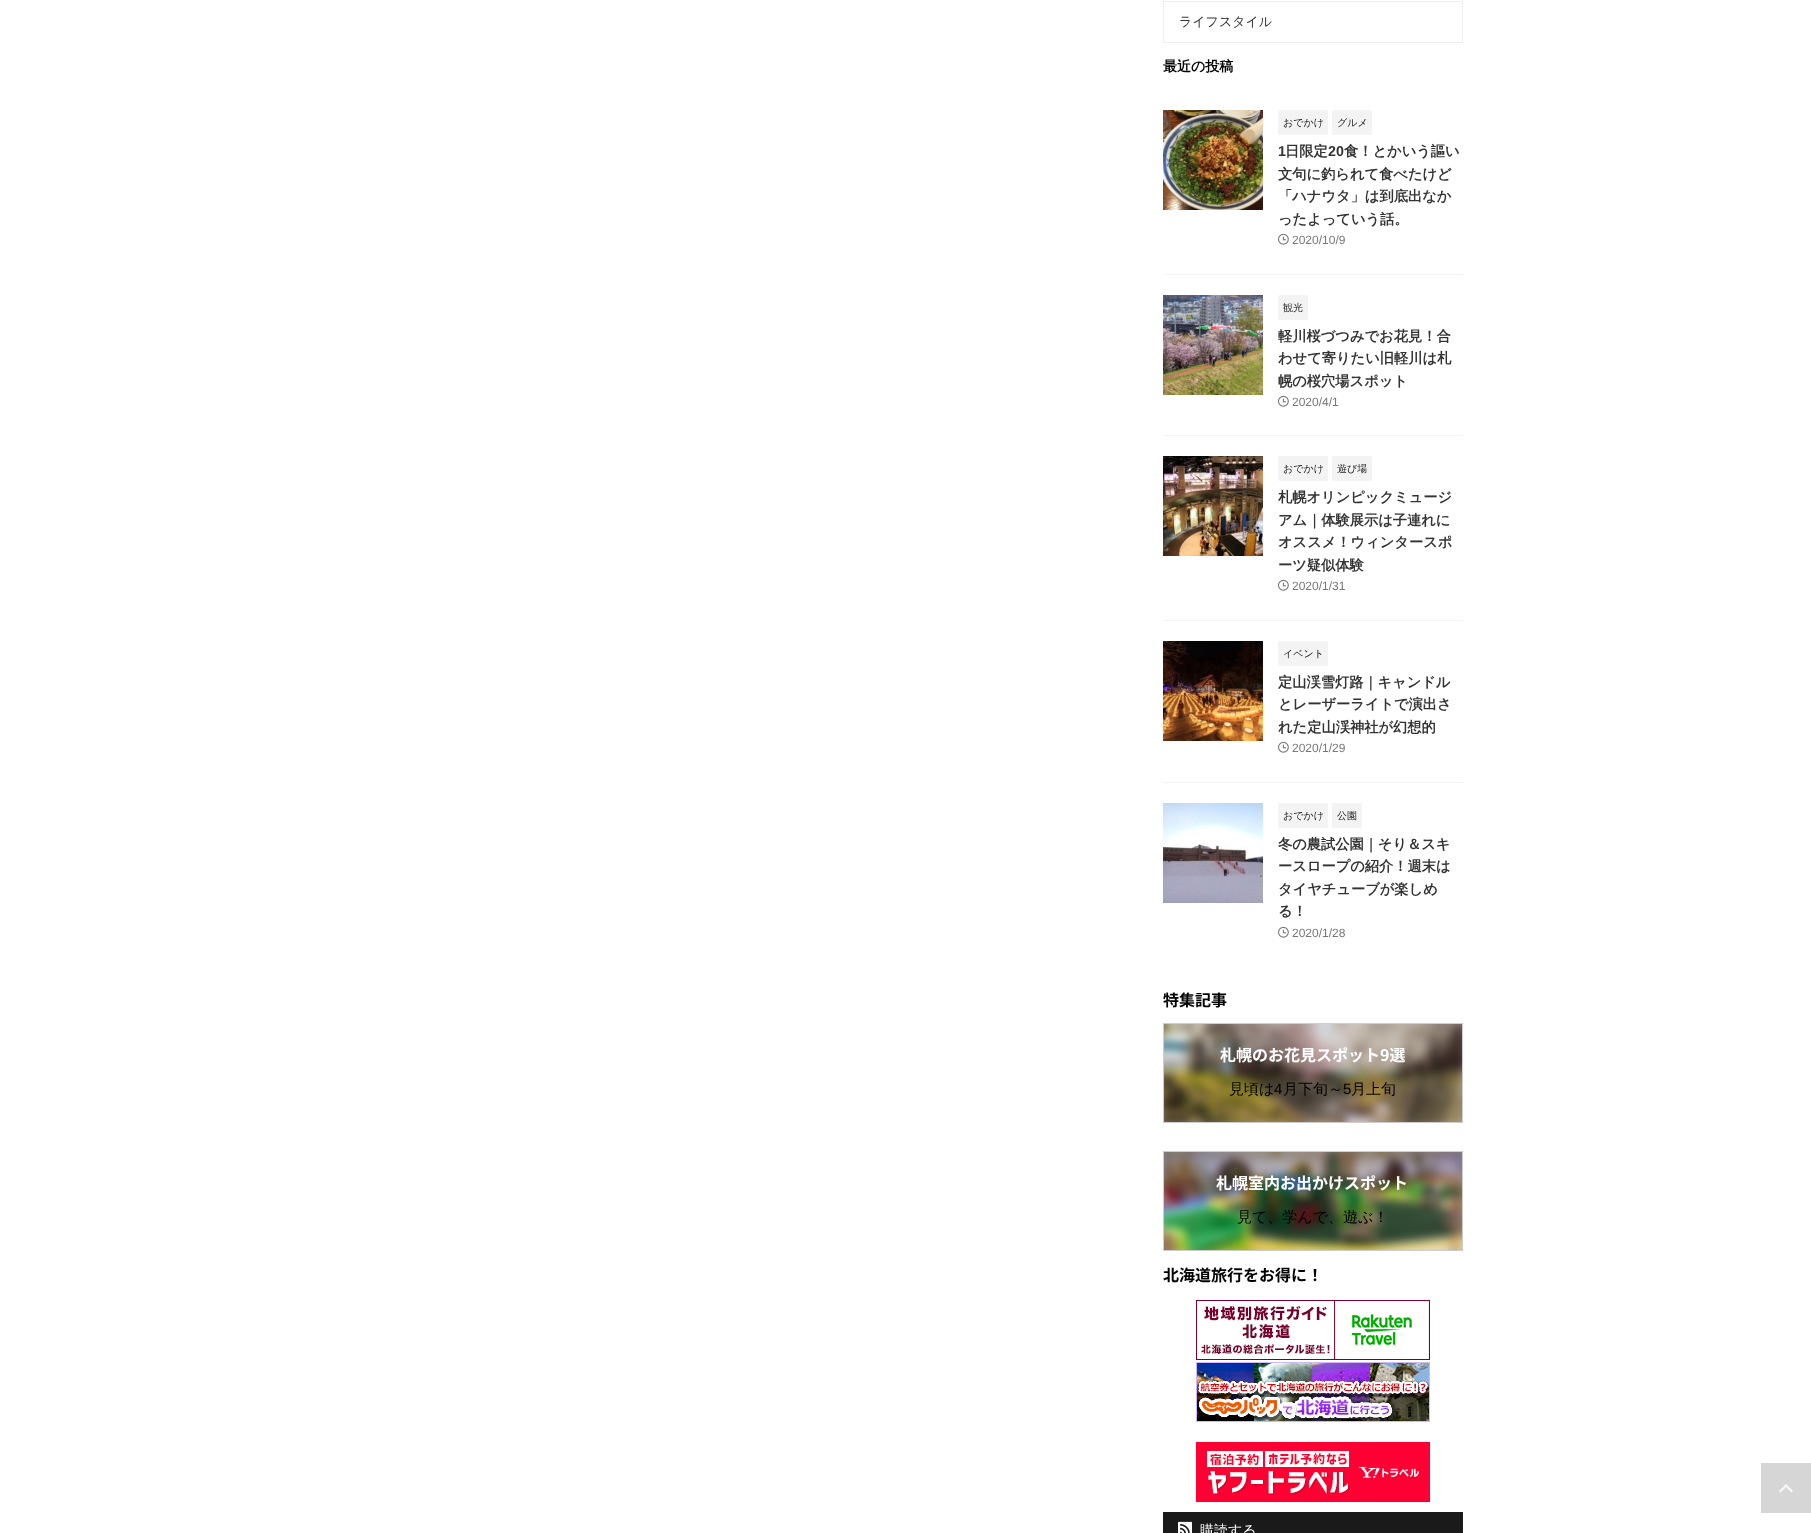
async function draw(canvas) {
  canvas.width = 1811
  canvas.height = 1533
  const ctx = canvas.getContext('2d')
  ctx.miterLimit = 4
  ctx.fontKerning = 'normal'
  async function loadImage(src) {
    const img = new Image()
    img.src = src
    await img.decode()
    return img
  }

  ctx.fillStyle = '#fff'
  ctx.fillRect(0, 0, 1811, 1533)
  ctx.fillStyle = '#eee'
  ctx.fillRect(1462, 0, 1, 1)
  ctx.fillRect(1163, 0, 1, 1)
  ctx.strokeStyle = '#eee'
  ctx.strokeRect(1163.5, 1.5, 299, 41)
  ctx.font = '500 13px WenQuanYi Zen Hei'
  ctx.fillStyle = '#333'
  ctx.fillText('ライフスタイル', 1179, 26)
  ctx.font = 'bold 14px WenQuanYi Zen Hei'
  ctx.fillStyle = '#000'
  ctx.fillText('最近の投稿', 1163, 71)
  ctx.fillStyle = '#f3f3f3'
  ctx.fillRect(1163, 274, 300, 1)
  ctx.drawImage(await loadImage('image0.png'), 1163, 110, 100, 100)
  ctx.beginPath()
  ctx.roundRect(1278, 110, 50, 25, 2)
  ctx.fill()
  ctx.font = '500 10px WenQuanYi Zen Hei'
  ctx.fillStyle = '#1a1a1a'
  ctx.fillText('おでかけ', 1283, 126)
  ctx.fillStyle = '#f3f3f3'
  ctx.beginPath()
  ctx.roundRect(1332, 110, 40, 25, 2)
  ctx.fill()
  ctx.fillStyle = '#1a1a1a'
  ctx.fillText('グルメ', 1337, 126)
  ctx.font = 'bold 14.25px Liberation Sans'
  ctx.fillStyle = '#333'
  ctx.fillText('1', 1278, 156)
  ctx.font = 'bold 14.25px WenQuanYi Zen Hei'
  ctx.fillText('日限定', 1285, 156)
  ctx.font = 'bold 14.25px Liberation Sans'
  ctx.fillText('20', 1328, 156)
  ctx.font = 'bold 14.25px WenQuanYi Zen Hei'
  ctx.fillText('食！とかいう謳い', 1344, 156)
  ctx.fillText('文句に釣られて食べたけど', 1278, 179)
  ctx.fillText('「ハナウタ」は到底出なか', 1278, 201)
  ctx.fillText('ったよっていう話。', 1278, 224)
  ctx.drawImage(await loadImage('image1.png'), 1278, 233, 11, 12)
  ctx.font = '12px Liberation Sans'
  ctx.fillStyle = '#777'
  ctx.fillText('2020/10/9', 1292, 244)
  ctx.fillStyle = '#f3f3f3'
  ctx.fillRect(1163, 435, 300, 1)
  ctx.drawImage(await loadImage('image2.png'), 1163, 295, 100, 100)
  ctx.beginPath()
  ctx.roundRect(1278, 295, 30, 25, 2)
  ctx.fill()
  ctx.font = '500 10px WenQuanYi Zen Hei'
  ctx.fillStyle = '#1a1a1a'
  ctx.fillText('観光', 1283, 311)
  ctx.font = 'bold 14.25px WenQuanYi Zen Hei'
  ctx.fillStyle = '#333'
  ctx.fillText('軽川桜づつみでお花見！合', 1278, 341)
  ctx.fillText('わせて寄りたい旧軽川は札', 1278, 363)
  ctx.fillText('幌の桜穴場スポット', 1278, 386)
  ctx.drawImage(await loadImage('image1.png'), 1278, 395, 11, 12)
  ctx.font = '12px Liberation Sans'
  ctx.fillStyle = '#777'
  ctx.fillText('2020/4/1', 1292, 406)
  ctx.fillStyle = '#f3f3f3'
  ctx.fillRect(1163, 620, 300, 1)
  ctx.drawImage(await loadImage('image3.png'), 1163, 456, 100, 100)
  ctx.beginPath()
  ctx.roundRect(1278, 456, 50, 25, 2)
  ctx.fill()
  ctx.font = '500 10px WenQuanYi Zen Hei'
  ctx.fillStyle = '#1a1a1a'
  ctx.fillText('おでかけ', 1283, 472)
  ctx.fillStyle = '#f3f3f3'
  ctx.beginPath()
  ctx.roundRect(1332, 456, 40, 25, 2)
  ctx.fill()
  ctx.fillStyle = '#1a1a1a'
  ctx.fillText('遊び場', 1337, 472)
  ctx.font = 'bold 14.25px WenQuanYi Zen Hei'
  ctx.fillStyle = '#333'
  ctx.fillText('札幌オリンピックミュージ', 1278, 502)
  ctx.fillText('アム｜体験展示は子連れに', 1278, 525)
  ctx.fillText('オススメ！ウィンタースポ', 1278, 547)
  ctx.fillText('ーツ疑似体験', 1278, 570)
  ctx.drawImage(await loadImage('image1.png'), 1278, 579, 11, 12)
  ctx.font = '12px Liberation Sans'
  ctx.fillStyle = '#777'
  ctx.fillText('2020/1/31', 1292, 590)
  ctx.fillStyle = '#f3f3f3'
  ctx.fillRect(1163, 782, 300, 1)
  ctx.drawImage(await loadImage('image4.png'), 1163, 641, 100, 100)
  ctx.beginPath()
  ctx.roundRect(1278, 641, 50, 25, 2)
  ctx.fill()
  ctx.font = '500 10px WenQuanYi Zen Hei'
  ctx.fillStyle = '#1a1a1a'
  ctx.fillText('イベント', 1283, 657)
  ctx.font = 'bold 14.25px WenQuanYi Zen Hei'
  ctx.fillStyle = '#333'
  ctx.fillText('定山渓雪灯路｜キャンドル', 1278, 687)
  ctx.fillText('とレーザーライトで演出さ', 1278, 709)
  ctx.fillText('れた定山渓神社が幻想的', 1278, 732)
  ctx.drawImage(await loadImage('image1.png'), 1278, 741, 11, 12)
  ctx.font = '12px Liberation Sans'
  ctx.fillStyle = '#777'
  ctx.fillText('2020/1/29', 1292, 752)
  ctx.drawImage(await loadImage('image5.png'), 1163, 803, 100, 100)
  ctx.fillStyle = '#f3f3f3'
  ctx.beginPath()
  ctx.roundRect(1278, 803, 50, 25, 2)
  ctx.fill()
  ctx.font = '500 10px WenQuanYi Zen Hei'
  ctx.fillStyle = '#1a1a1a'
  ctx.fillText('おでかけ', 1283, 819)
  ctx.fillStyle = '#f3f3f3'
  ctx.beginPath()
  ctx.roundRect(1332, 803, 30, 25, 2)
  ctx.fill()
  ctx.fillStyle = '#1a1a1a'
  ctx.fillText('公園', 1337, 819)
  ctx.font = 'bold 14.25px WenQuanYi Zen Hei'
  ctx.fillStyle = '#333'
  ctx.fillText('冬の農試公園｜そり＆スキ', 1278, 849)
  ctx.fillText('ースロープの紹介！週末は', 1278, 871)
  ctx.fillText('タイヤチューブが楽しめ', 1278, 894)
  ctx.fillText('る！', 1278, 916)
  ctx.drawImage(await loadImage('image1.png'), 1278, 926, 11, 12)
  ctx.font = '12px Liberation Sans'
  ctx.fillStyle = '#777'
  ctx.fillText('2020/1/28', 1292, 937)
  ctx.font = 'bold 16px Noto Sans JP'
  ctx.fillStyle = '#000'
  ctx.fillText('特集記事', 1163, 1006)
  ctx.drawImage(await loadImage('image6.png'), 1164, 1024, 298, 98)
  ctx.strokeStyle = '#ccc'
  ctx.strokeRect(1163.5, 1023.5, 299, 99)
  ctx.save()
  ctx.beginPath()
  ctx.rect(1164, 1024, 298, 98)
  ctx.clip()
  ctx.fillStyle = '#ccc'
  ctx.filter = 'blur(5px)'
  ctx.beginPath()
  ctx.rect(1159, 1019, 308, 108)
  ctx.fill()
  ctx.filter = 'none'
  ctx.restore()
  ctx.drawImage(await loadImage('image7.png'), 1164, 1024, 298, 98)
  ctx.fillStyle = '#fff'
  ctx.fillText('札幌のお花見スポット9選', 1220, 1061)
  ctx.font = '500 15px WenQuanYi Zen Hei'
  ctx.fillStyle = '#000'
  ctx.fillText('見頃は', 1229, 1094)
  ctx.font = '15px Liberation Sans'
  ctx.fillText('4', 1274, 1094)
  ctx.font = '500 15px WenQuanYi Zen Hei'
  ctx.fillText('月下旬～', 1283, 1094)
  ctx.font = '15px Liberation Sans'
  ctx.fillText('5', 1343, 1094)
  ctx.font = '500 15px WenQuanYi Zen Hei'
  ctx.fillText('月上旬', 1351, 1094)
  ctx.drawImage(await loadImage('image8.png'), 1164, 1152, 298, 98)
  ctx.strokeRect(1163.5, 1151.5, 299, 99)
  ctx.save()
  ctx.beginPath()
  ctx.rect(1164, 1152, 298, 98)
  ctx.clip()
  ctx.fillStyle = '#ccc'
  ctx.filter = 'blur(5px)'
  ctx.beginPath()
  ctx.rect(1159, 1147, 308, 108)
  ctx.fill()
  ctx.filter = 'none'
  ctx.restore()
  ctx.drawImage(await loadImage('image9.png'), 1164, 1152, 298, 98)
  ctx.font = 'bold 16px Noto Sans JP'
  ctx.fillStyle = '#fff'
  ctx.fillText('札幌室内お出かけスポット', 1216, 1189)
  ctx.font = '500 15px WenQuanYi Zen Hei'
  ctx.fillStyle = '#000'
  ctx.fillText('見て、学んで、遊ぶ！', 1237, 1222)
  ctx.font = 'bold 16px Noto Sans JP'
  ctx.fillText('北海道旅行をお得に！', 1163, 1281)
  ctx.drawImage(await loadImage('image10.png'), 1196, 1300, 234, 60)
  ctx.drawImage(await loadImage('image11.png'), 1196, 1362, 234, 60)
  ctx.drawImage(await loadImage('image12.png'), 1196, 1442, 234, 60)
  ctx.fillStyle = '#1a1a1a'
  ctx.fillRect(1163, 1512, 300, 21)
  ctx.drawImage(await loadImage('image13.png'), 1178, 1521, 14, 12)
  ctx.font = '500 14px WenQuanYi Zen Hei'
  ctx.fillStyle = '#fff'
  ctx.fillText('購読する', 1200, 1535)
  ctx.fillStyle = '#d6d6d6'
  ctx.fillRect(1761, 1463, 50, 50)
  ctx.drawImage(await loadImage('image14.png'), 1779, 1484, 14, 9)
}

draw(document.querySelector('canvas'))
